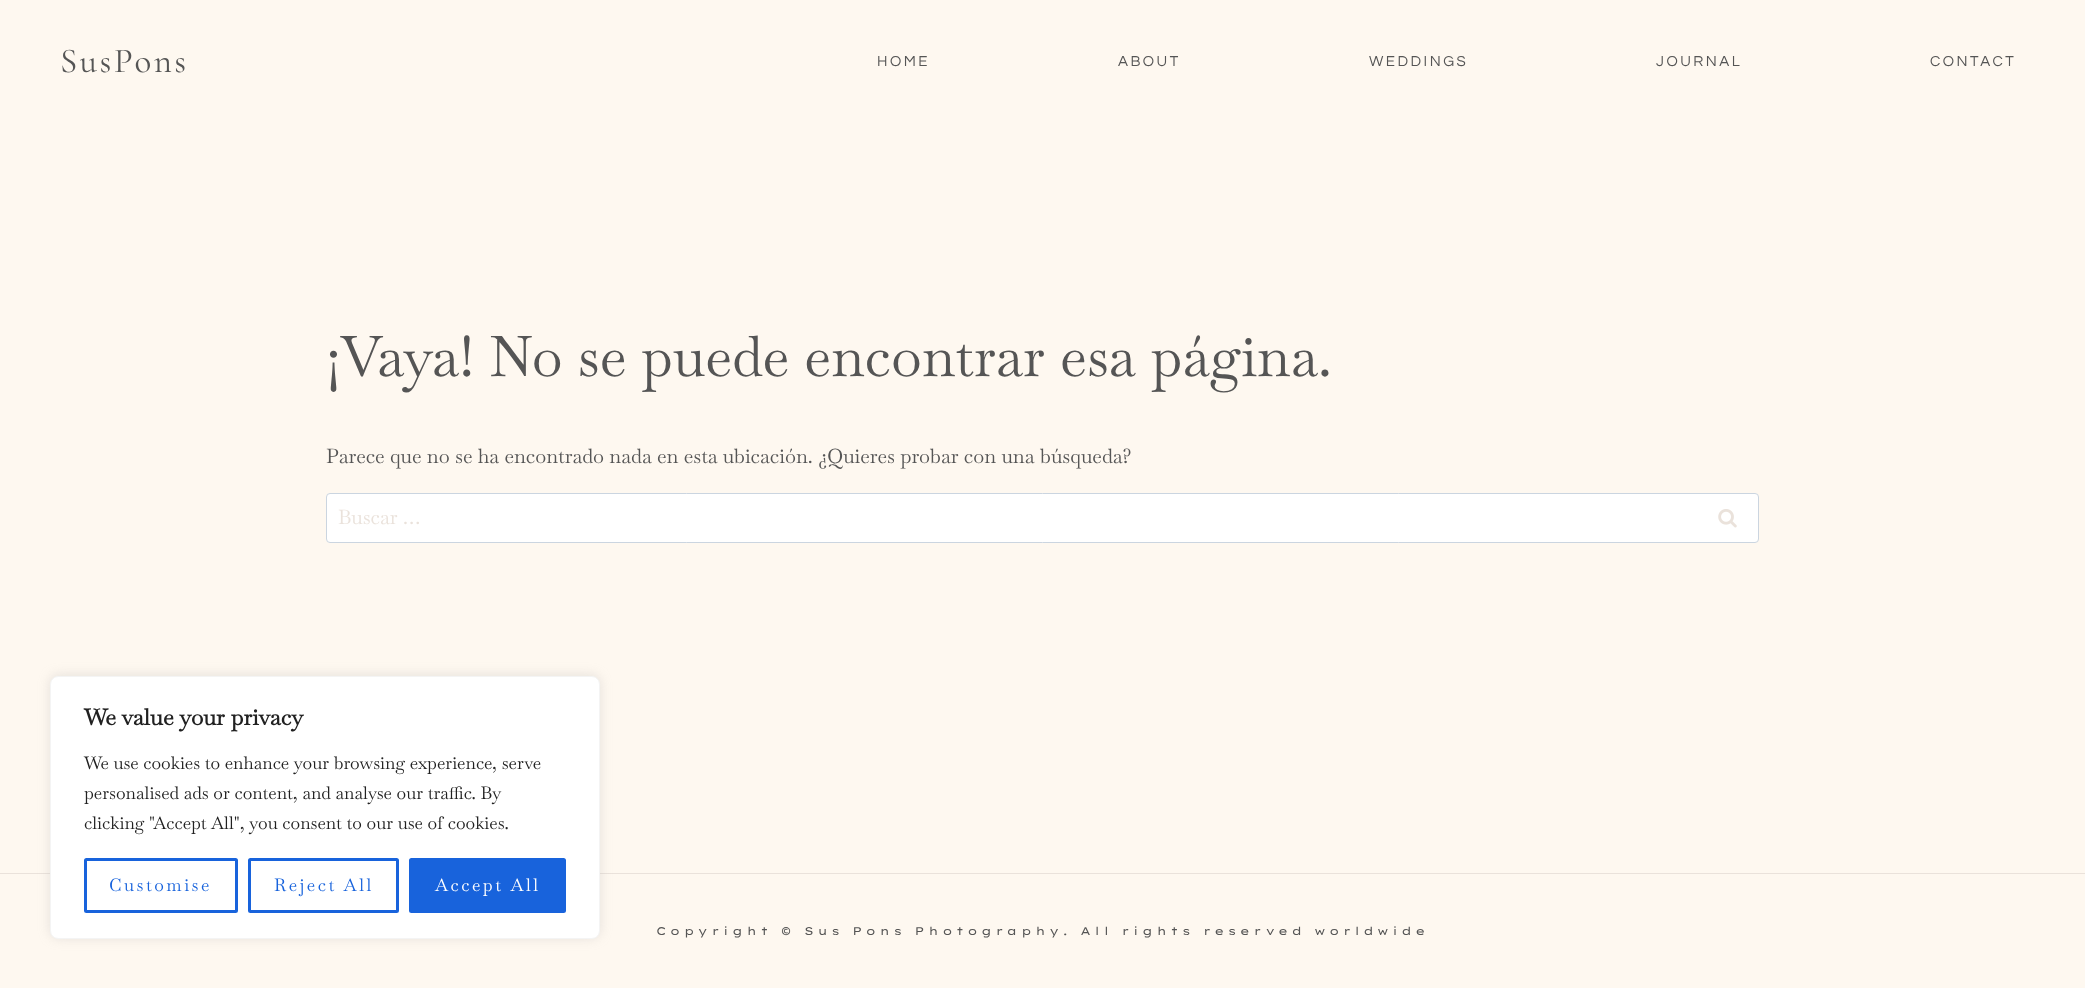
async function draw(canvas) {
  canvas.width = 2085
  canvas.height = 988
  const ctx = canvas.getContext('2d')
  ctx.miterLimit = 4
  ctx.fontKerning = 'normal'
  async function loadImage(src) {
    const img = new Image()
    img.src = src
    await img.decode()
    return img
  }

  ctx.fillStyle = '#fef8f0'
  ctx.fillRect(0, 0, 2085, 988)
  ctx.letterSpacing = '2.5px'
  ctx.font = '300 35px Cormorant Garamond'
  ctx.fillStyle = '#555'
  ctx.fillText('SusPons', 60, 72)
  ctx.font = '15px Questrial'
  ctx.fillText('HOME', 877, 66)
  ctx.fillText('ABOUT', 1118, 66)
  ctx.fillText('WEDDINGS', 1369, 66)
  ctx.fillText('JOURNAL', 1656, 66)
  ctx.fillText('CONTACT', 1930, 66)
  ctx.letterSpacing = '0px'
  ctx.font = '56.25px Baskervville'
  ctx.fillText('¡Vaya! No se puede encontrar esa página.', 326, 376)
  ctx.font = '20px Baskervville'
  ctx.fillText('Parece que no se ha encontrado nada en esta ubicación. ¿Quieres probar con una búsqueda?', 326, 463)
  ctx.fillStyle = '#fff'
  ctx.beginPath()
  ctx.roundRect(326.5, 493.5, 1432, 49, 3.5)
  ctx.fill()
  ctx.strokeStyle = '#cbd5e0'
  ctx.stroke()
  ctx.fillStyle = '#eae2db'
  ctx.fillText('Buscar …', 338, 524)
  ctx.drawImage(await loadImage('image0.png'), 1718, 509, 19, 19)
  ctx.fillRect(0, 873, 2085, 1)
  ctx.letterSpacing = '3.75px'
  ctx.font = '11.25px Lexend Tera'
  ctx.fillStyle = '#555'
  ctx.fillText('Copyright © Sus Pons Photography. All rights reserved worldwide', 656, 935)
  ctx.fillStyle = '#acabab4d'
  ctx.filter = 'blur(6px)'
  ctx.beginPath()
  ctx.roundRect(50, 675, 550, 263, 8)
  ctx.fill()
  ctx.filter = 'none'
  ctx.fillStyle = '#fff'
  ctx.beginPath()
  ctx.roundRect(50.5, 676.5, 549, 262, 7.5)
  ctx.fill()
  ctx.strokeStyle = '#f4f4f4'
  ctx.stroke()
  ctx.letterSpacing = '0px'
  ctx.font = 'bold 22.5px Baskervville'
  ctx.fillStyle = '#212121'
  ctx.fillText('We value your privacy', 84, 725)
  ctx.font = '17.5px Baskervville'
  ctx.fillText('We use cookies to enhance your browsing experience, serve', 84, 769)
  ctx.fillText('personalised ads or content, and analyse our traffic. By', 84, 799)
  ctx.fillText('clicking "Accept All", you consent to our use of cookies.', 84, 829)
  ctx.beginPath()
  ctx.roundRect(85.5, 859.5, 151, 52, 1)
  ctx.strokeStyle = '#1863dc'
  ctx.lineWidth = 3
  ctx.stroke()
  ctx.letterSpacing = '2.5px'
  ctx.fillStyle = '#1863dc'
  ctx.fillText('Customise', 109, 891)
  ctx.beginPath()
  ctx.roundRect(249.5, 859.5, 148, 52, 1)
  ctx.stroke()
  ctx.fillText('Reject All', 274, 891)
  ctx.beginPath()
  ctx.roundRect(410.5, 859.5, 154, 52, 1)
  ctx.fill()
  ctx.stroke()
  ctx.fillStyle = '#fff'
  ctx.fillText('Accept All', 435, 891)
}

draw(document.querySelector('canvas'))
